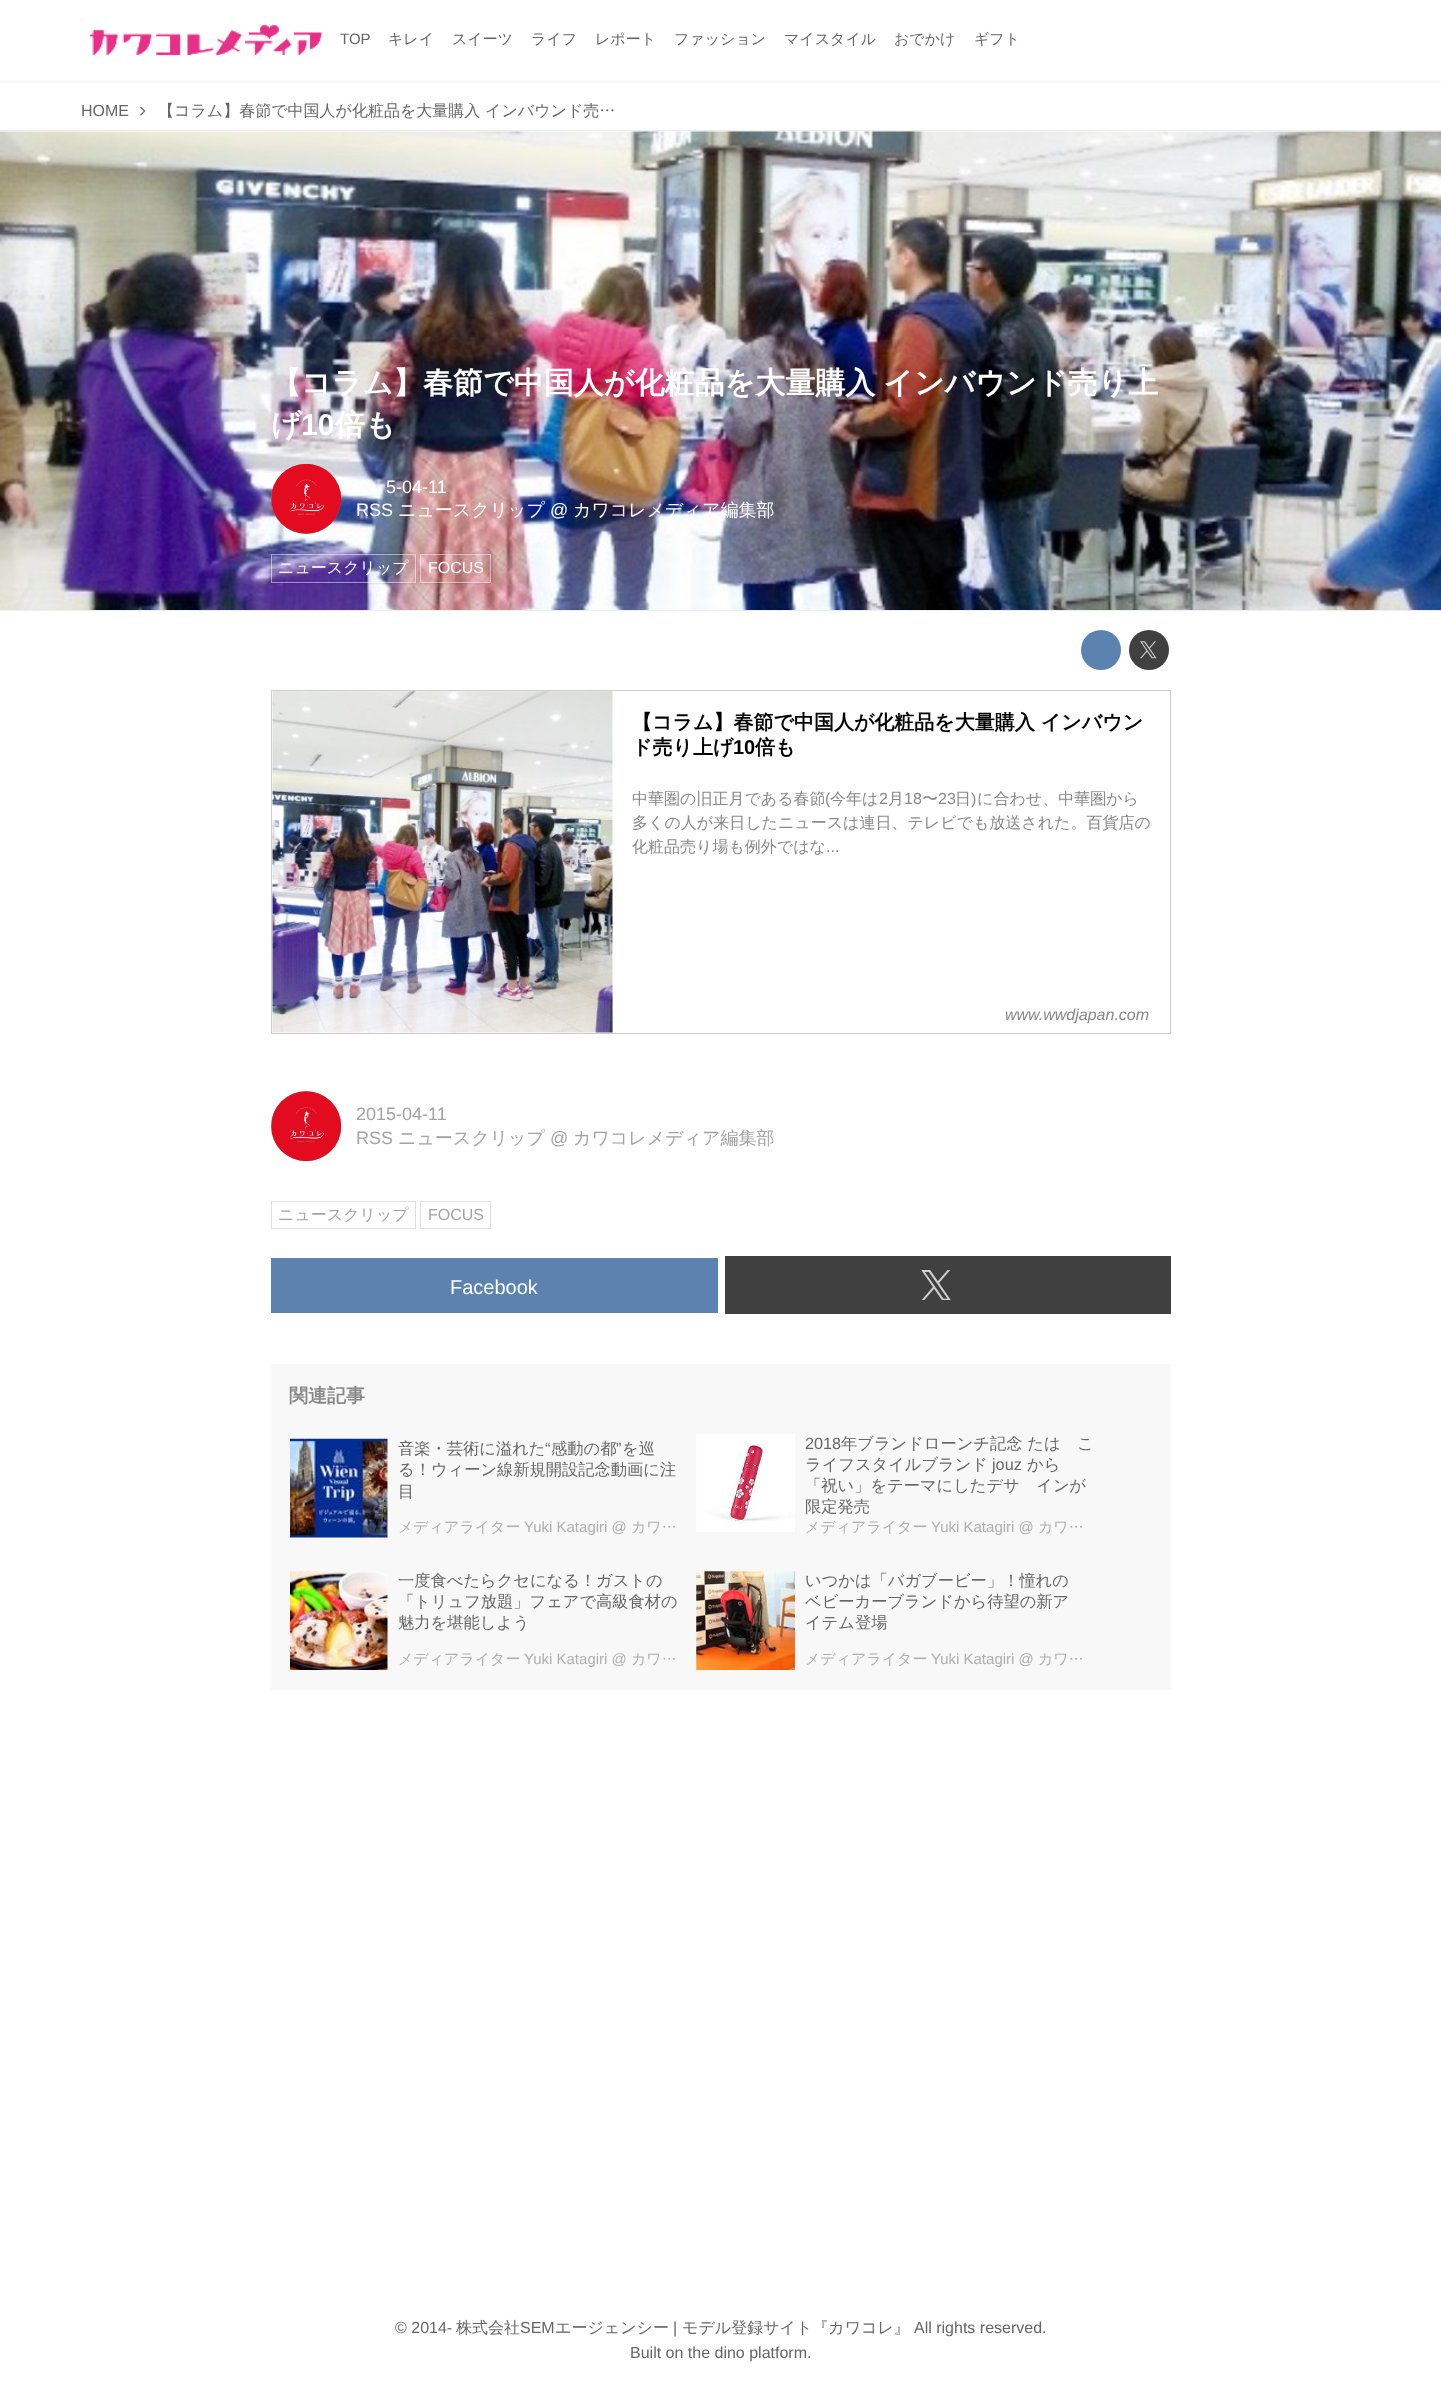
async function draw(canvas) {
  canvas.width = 1441
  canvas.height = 2382
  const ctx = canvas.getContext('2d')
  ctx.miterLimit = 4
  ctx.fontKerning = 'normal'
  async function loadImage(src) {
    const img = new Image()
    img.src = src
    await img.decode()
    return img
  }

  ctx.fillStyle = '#fff'
  ctx.fillRect(0, 0, 1441, 2382)
  ctx.drawImage(await loadImage('image0.png'), 89, 24, 233, 32)
  ctx.font = '15px Liberation Sans'
  ctx.fillStyle = '#666'
  ctx.fillText('TOP', 340, 44)
  ctx.font = '500 15px WenQuanYi Zen Hei'
  ctx.fillText('キレイ', 388, 44)
  ctx.fillText('スイーツ', 452, 44)
  ctx.fillText('ライフ', 531, 44)
  ctx.fillText('レポート', 595, 44)
  ctx.fillText('ファッション', 674, 44)
  ctx.fillText('マイスタイル', 784, 44)
  ctx.fillText('おでかけ', 894, 44)
  ctx.fillText('ギフト', 974, 44)
  ctx.fillStyle = '#f8f8f8'
  ctx.fillRect(0, 80, 1441, 3)
  ctx.font = '16px Liberation Sans'
  ctx.fillStyle = '#666'
  ctx.fillText('HOME', 81, 116)
  ctx.drawImage(await loadImage('image1.png'), 140, 106, 6, 10)
  ctx.font = '500 16px WenQuanYi Zen Hei'
  ctx.fillText('【コラム】春節で中国人が化粧品を大量購入 インバウンド売…', 158, 116)
  ctx.fillStyle = '#eee'
  ctx.fillRect(0, 130, 1441, 1)
  ctx.fillRect(0, 610, 1441, 1)
  ctx.drawImage(await loadImage('image2.png'), 0, 131, 1441, 479)
  ctx.wordSpacing = '-1px'
  ctx.font = 'bold 30px WenQuanYi Zen Hei'
  ctx.fillStyle = '#fff'
  ctx.fillText('【コラム】春節で中国人が化粧品を大量購入 インバウンド売り上', 271, 393)
  ctx.wordSpacing = '0px'
  ctx.fillText('げ', 271, 435)
  ctx.font = 'bold 30px Liberation Sans'
  ctx.fillText('10', 301, 435)
  ctx.font = 'bold 30px WenQuanYi Zen Hei'
  ctx.fillText('倍も', 335, 435)
  ctx.fillStyle = '#888'
  ctx.beginPath()
  ctx.arc(306, 499, 35, 0, 2 * Math.PI)
  ctx.fill()
  ctx.drawImage(await loadImage('image3.png'), 271, 463, 71, 71)
  ctx.font = '18px Liberation Sans'
  ctx.fillStyle = '#fff'
  ctx.fillText('5-04-11', 386, 493)
  ctx.fillText('RSS', 356, 516)
  ctx.font = '500 18px WenQuanYi Zen Hei'
  ctx.fillText('ニュースクリップ', 398, 516)
  ctx.font = '18px Liberation Sans'
  ctx.fillText('@', 550, 516)
  ctx.font = '500 18px WenQuanYi Zen Hei'
  ctx.fillText('カワコレメディア編集部', 573, 516)
  ctx.save()
  ctx.beginPath()
  ctx.moveTo(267, 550)
  ctx.lineTo(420, 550)
  ctx.lineTo(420, 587)
  ctx.lineTo(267, 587)
  ctx.closePath()
  ctx.moveTo(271, 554)
  ctx.lineTo(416, 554)
  ctx.lineTo(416, 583)
  ctx.lineTo(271, 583)
  ctx.closePath()
  ctx.clip('evenodd')
  ctx.fillStyle = '#00000040'
  ctx.filter = 'blur(1px)'
  ctx.beginPath()
  ctx.rect(271, 554, 145, 29)
  ctx.fill()
  ctx.filter = 'none'
  ctx.restore()
  ctx.strokeStyle = '#ffffff80'
  ctx.strokeRect(271.5, 554.5, 144, 28)
  ctx.font = '500 16px WenQuanYi Zen Hei'
  ctx.fillText('ニュースクリップ', 278, 573)
  ctx.save()
  ctx.beginPath()
  ctx.moveTo(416, 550)
  ctx.lineTo(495, 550)
  ctx.lineTo(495, 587)
  ctx.lineTo(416, 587)
  ctx.closePath()
  ctx.moveTo(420, 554)
  ctx.lineTo(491, 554)
  ctx.lineTo(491, 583)
  ctx.lineTo(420, 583)
  ctx.closePath()
  ctx.clip('evenodd')
  ctx.fillStyle = '#00000040'
  ctx.filter = 'blur(1px)'
  ctx.beginPath()
  ctx.rect(420, 554, 71, 29)
  ctx.fill()
  ctx.filter = 'none'
  ctx.restore()
  ctx.strokeRect(420.5, 554.5, 70, 28)
  ctx.font = '16px Liberation Sans'
  ctx.fillText('FOCUS', 428, 573)
  ctx.fillStyle = '#5c83b0'
  ctx.beginPath()
  ctx.arc(1101, 650, 20, 0, 2 * Math.PI)
  ctx.fill()
  ctx.fillStyle = '#404040'
  ctx.beginPath()
  ctx.arc(1149, 650, 20, 0, 2 * Math.PI)
  ctx.fill()
  ctx.drawImage(await loadImage('image4.png'), 1140, 641, 17, 18)
  ctx.strokeStyle = '#ccc'
  ctx.strokeRect(271.5, 690.5, 899, 343)
  ctx.drawImage(await loadImage('image5.png'), 272, 691, 341, 342)
  ctx.font = 'bold 20px WenQuanYi Zen Hei'
  ctx.fillStyle = '#000'
  ctx.fillText('【コラム】春節で中国人が化粧品を大量購入 インバウン', 632, 729)
  ctx.fillText('ド売り上げ', 632, 754)
  ctx.font = 'bold 20px Liberation Sans'
  ctx.fillText('10', 733, 754)
  ctx.font = 'bold 20px WenQuanYi Zen Hei'
  ctx.fillText('倍も', 755, 754)
  ctx.font = '500 16px WenQuanYi Zen Hei'
  ctx.fillStyle = '#888'
  ctx.fillText('中華圏の旧正月である春節', 632, 804)
  ctx.font = '16px Liberation Sans'
  ctx.fillText('(', 825, 804)
  ctx.font = '500 16px WenQuanYi Zen Hei'
  ctx.fillText('今年は', 830, 804)
  ctx.font = '16px Liberation Sans'
  ctx.fillText('2', 879, 804)
  ctx.font = '500 16px WenQuanYi Zen Hei'
  ctx.fillText('月', 888, 804)
  ctx.font = '16px Liberation Sans'
  ctx.fillText('18', 904, 804)
  ctx.font = '500 16px WenQuanYi Zen Hei'
  ctx.fillText('〜', 922, 804)
  ctx.font = '16px Liberation Sans'
  ctx.fillText('23', 938, 804)
  ctx.font = '500 16px WenQuanYi Zen Hei'
  ctx.fillText('日', 955, 804)
  ctx.font = '16px Liberation Sans'
  ctx.fillText(')', 971, 804)
  ctx.font = '500 16px WenQuanYi Zen Hei'
  ctx.fillText('に合わせ、中華圏から', 977, 804)
  ctx.fillText('多くの人が来日したニュースは連日、テレビでも放送された。百貨店の', 632, 828)
  ctx.fillText('化粧品売り場も例外ではな', 632, 852)
  ctx.font = '16px Liberation Sans'
  ctx.fillText('...', 826, 852)
  ctx.font = 'italic 16px Liberation Sans'
  ctx.fillText('www.wwdjapan.com', 1005, 1020)
  ctx.beginPath()
  ctx.arc(306, 1126, 35, 0, 2 * Math.PI)
  ctx.fill()
  ctx.drawImage(await loadImage('image6.png'), 271, 1091, 71, 71)
  ctx.font = '18px Liberation Sans'
  ctx.fillStyle = '#a3a3a3'
  ctx.fillText('2015-04-11', 356, 1120)
  ctx.fillText('RSS', 356, 1144)
  ctx.font = '500 18px WenQuanYi Zen Hei'
  ctx.fillText('ニュースクリップ', 398, 1144)
  ctx.font = '18px Liberation Sans'
  ctx.fillText('@', 550, 1144)
  ctx.font = '500 18px WenQuanYi Zen Hei'
  ctx.fillText('カワコレメディア編集部', 573, 1144)
  ctx.strokeStyle = '#dfdfdf'
  ctx.strokeRect(271.5, 1201.5, 144, 27)
  ctx.font = '500 16px WenQuanYi Zen Hei'
  ctx.fillText('ニュースクリップ', 278, 1220)
  ctx.strokeRect(420.5, 1201.5, 70, 27)
  ctx.font = '16px Liberation Sans'
  ctx.fillText('FOCUS', 428, 1220)
  ctx.fillStyle = '#5c83b0'
  ctx.fillRect(271, 1258, 447, 55)
  ctx.font = '20px Liberation Sans'
  ctx.fillStyle = '#fff'
  ctx.fillText('Facebook', 450, 1294)
  ctx.fillStyle = '#404040'
  ctx.fillRect(725, 1256, 446, 58)
  ctx.drawImage(await loadImage('image7.png'), 921, 1270, 30, 30)
  ctx.fillStyle = '#f8f8f8'
  ctx.fillRect(271, 1364, 900, 326)
  ctx.font = 'bold 19px WenQuanYi Zen Hei'
  ctx.fillStyle = '#888'
  ctx.fillText('関連記事', 289, 1402)
  ctx.drawImage(await loadImage('image8.png'), 290, 1438, 98, 100)
  ctx.font = '500 16.25px WenQuanYi Zen Hei'
  ctx.fillStyle = '#666'
  ctx.fillText('音楽・芸術に溢れた', 398, 1454)
  ctx.font = '16.25px Liberation Sans'
  ctx.fillText('“', 545, 1454)
  ctx.font = '500 16.25px WenQuanYi Zen Hei'
  ctx.fillText('感動の都', 551, 1454)
  ctx.font = '16.25px Liberation Sans'
  ctx.fillText('”', 616, 1454)
  ctx.font = '500 16.25px WenQuanYi Zen Hei'
  ctx.fillText('を巡', 622, 1454)
  ctx.fillText('る！ウィーン線新規開設記念動画に注', 398, 1475)
  ctx.fillText('目', 398, 1497)
  ctx.font = '500 15px WenQuanYi Zen Hei'
  ctx.fillStyle = '#afafaf'
  ctx.fillText('メディアライター', 398, 1532)
  ctx.font = '15px Liberation Sans'
  ctx.fillText('Yuki Katagiri @', 524, 1532)
  ctx.font = '500 15px WenQuanYi Zen Hei'
  ctx.fillText('カワ…', 631, 1532)
  ctx.drawImage(await loadImage('image9.png'), 696, 1434, 99, 98)
  ctx.font = '16.25px Liberation Sans'
  ctx.fillStyle = '#666'
  ctx.fillText('2018', 805, 1449)
  ctx.font = '500 16.25px WenQuanYi Zen Hei'
  ctx.fillText('年ブランドローンチ記念 たばこ', 841, 1449)
  ctx.fillText('ライフスタイルブランド', 805, 1470)
  ctx.font = '16.25px Liberation Sans'
  ctx.fillText('jouz', 992, 1470)
  ctx.font = '500 16.25px WenQuanYi Zen Hei'
  ctx.fillText('から', 1027, 1470)
  ctx.fillText('「祝い」をテーマにしたデザインが', 805, 1491)
  ctx.fillText('限定発売', 805, 1512)
  ctx.font = '500 15px WenQuanYi Zen Hei'
  ctx.fillStyle = '#afafaf'
  ctx.fillText('メディアライター', 805, 1532)
  ctx.font = '15px Liberation Sans'
  ctx.fillText('Yuki Katagiri @', 931, 1532)
  ctx.font = '500 15px WenQuanYi Zen Hei'
  ctx.fillText('カワ…', 1038, 1532)
  ctx.drawImage(await loadImage('image10.png'), 290, 1571, 98, 99)
  ctx.font = '500 16.25px WenQuanYi Zen Hei'
  ctx.fillStyle = '#666'
  ctx.fillText('一度食べたらクセになる！ガストの', 398, 1586)
  ctx.fillText('「トリュフ放題」フェアで高級食材の', 398, 1607)
  ctx.fillText('魅力を堪能しよう', 398, 1628)
  ctx.font = '500 15px WenQuanYi Zen Hei'
  ctx.fillStyle = '#afafaf'
  ctx.fillText('メディアライター', 398, 1664)
  ctx.font = '15px Liberation Sans'
  ctx.fillText('Yuki Katagiri @', 524, 1664)
  ctx.font = '500 15px WenQuanYi Zen Hei'
  ctx.fillText('カワ…', 631, 1664)
  ctx.drawImage(await loadImage('image11.png'), 696, 1571, 99, 99)
  ctx.font = '500 16.25px WenQuanYi Zen Hei'
  ctx.fillStyle = '#666'
  ctx.fillText('いつかは「バガブービー」！憧れの', 805, 1586)
  ctx.fillText('ベビーカーブランドから待望の新ア', 805, 1607)
  ctx.fillText('イテム登場', 805, 1628)
  ctx.font = '500 15px WenQuanYi Zen Hei'
  ctx.fillStyle = '#afafaf'
  ctx.fillText('メディアライター', 805, 1664)
  ctx.font = '15px Liberation Sans'
  ctx.fillText('Yuki Katagiri @', 931, 1664)
  ctx.font = '500 15px WenQuanYi Zen Hei'
  ctx.fillText('カワ…', 1038, 1664)
  ctx.font = '16px Liberation Sans'
  ctx.fillStyle = '#666'
  ctx.fillText('© 2014-', 395, 2333)
  ctx.font = '500 16px WenQuanYi Zen Hei'
  ctx.fillText('株式会社', 456, 2333)
  ctx.font = '16px Liberation Sans'
  ctx.fillText('SEM', 520, 2333)
  ctx.font = '500 16px WenQuanYi Zen Hei'
  ctx.fillText('エージェンシー', 555, 2333)
  ctx.font = '16px Liberation Sans'
  ctx.fillText('|', 673, 2333)
  ctx.font = '500 16px WenQuanYi Zen Hei'
  ctx.fillText('モデル登録サイト『カワコレ』', 682, 2333)
  ctx.font = '16px Liberation Sans'
  ctx.fillText('All rights reserved.', 914, 2333)
  ctx.fillText('Built on the dino platform.', 630, 2358)
}

draw(document.querySelector('canvas'))
